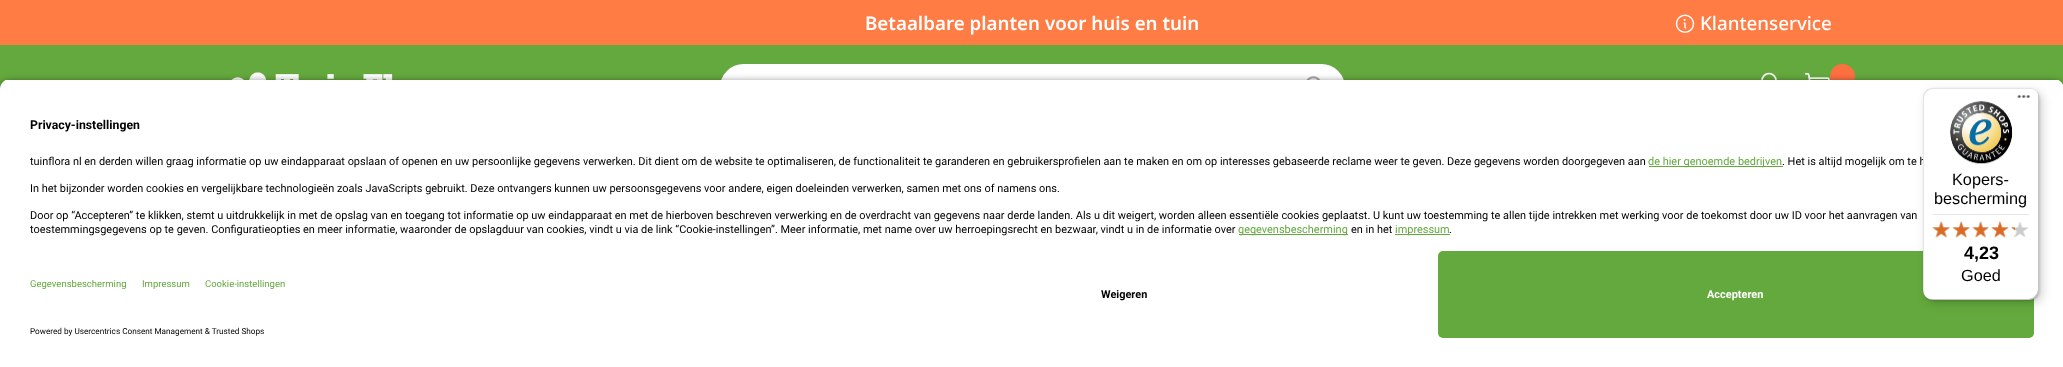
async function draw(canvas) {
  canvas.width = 2063
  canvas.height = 367
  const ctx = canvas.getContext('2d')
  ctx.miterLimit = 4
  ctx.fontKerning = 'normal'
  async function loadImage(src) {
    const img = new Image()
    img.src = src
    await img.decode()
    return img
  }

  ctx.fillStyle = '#ff7c45'
  ctx.fillRect(0, 0, 2063, 367)
  ctx.font = '600 18.75px Noto Sans'
  ctx.fillStyle = '#fff'
  ctx.fillText('Betaalbare planten voor huis en tuin', 865, 30)
  ctx.drawImage(await loadImage('image0.png'), 1675, 14, 20, 19)
  ctx.font = '500 18.75px Noto Sans'
  ctx.fillText('Klantenservice', 1700, 30)
  ctx.fillStyle = '#64a93d'
  ctx.fillRect(0, 45, 2063, 44)
  ctx.drawImage(await loadImage('image1.png'), 231, 72, 162, 8)
  ctx.fillStyle = '#fff'
  ctx.beginPath()
  ctx.roundRect(720, 64, 625, 47, 23.5)
  ctx.fill()
  ctx.drawImage(await loadImage('image2.png'), 1306, 76, 15, 4)
  ctx.beginPath()
  ctx.arc(1769, 80.5, 7, 0, 2 * Math.PI)
  ctx.strokeStyle = '#fff'
  ctx.lineWidth = 1.7
  ctx.stroke()
  ctx.drawImage(await loadImage('image3.png'), 1805, 73, 25, 7)
  ctx.fillStyle = '#ff7041'
  ctx.beginPath()
  ctx.arc(1842.5, 76.5, 12.5, 0, 2 * Math.PI)
  ctx.fill()
  ctx.fillStyle = '#000000cc'
  ctx.filter = 'blur(4.5px)'
  ctx.beginPath()
  ctx.roundRect(0, 83, 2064, 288, 10)
  ctx.fill()
  ctx.filter = 'none'
  ctx.save()
  ctx.beginPath()
  ctx.moveTo(10, 79)
  ctx.lineTo(2054, 79)
  ctx.bezierCurveTo(2059.5, 79, 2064, 83.5, 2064, 89)
  ctx.lineTo(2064, 241)
  ctx.lineTo(0, 241)
  ctx.lineTo(0, 89)
  ctx.bezierCurveTo(0, 83.5, 4.5, 79, 10, 79)
  ctx.closePath()
  ctx.clip()
  ctx.fillStyle = '#fff'
  ctx.fillRect(0, 80, 2063, 161)
  ctx.restore()
  ctx.font = 'bold 12.25px Roboto'
  ctx.fillStyle = '#000'
  ctx.fillText('Privacy-instellingen', 30, 129)
  ctx.font = '10.94px Roboto'
  ctx.fillText('tuinflora nl en derden willen graag informatie op uw eindapparaat opslaan of openen en uw persoonlijke gegevens verwerken. Dit dient om de website te optimaliseren, de functionaliteit te garanderen en gebruikersprofielen aan te maken en om op interesses gebaseerde reclame weer te geven. Deze gegevens worden doorgegeven aan', 30, 165)
  ctx.fillStyle = '#64a93d'
  ctx.fillRect(1649, 166, 134, 1)
  ctx.fillText('de hier genoemde bedrijven', 1648, 165)
  ctx.fillStyle = '#000'
  ctx.fillText('. Het is altijd mogelijk om te h', 1782, 165)
  ctx.fillText('In het bijzonder worden cookies en vergelijkbare technologieën zoals JavaScripts gebruikt. Deze ontvangers kunnen uw persoonsgegevens voor andere, eigen doeleinden verwerken, samen met ons of namens ons.', 30, 192)
  ctx.fillText('Door op “Accepteren” te klikken, stemt u uitdrukkelijk in met de opslag van en toegang tot informatie op uw eindapparaat en met de hierboven beschreven verwerking en de overdracht van gegevens naar derde landen. Als u dit weigert, worden alleen essentiële cookies geplaatst. U kunt uw toestemming te allen tijde intrekken met werking voor de toekomst door uw ID voor het aanvragen van', 30, 219)
  ctx.fillText('toestemmingsgegevens op te geven. Configuratieopties en meer informatie, waaronder de opslagduur van cookies, vindt u via de link “Cookie-instellingen”. Meer informatie, met name over uw herroepingsrecht en bezwaar, vindt u in de informatie over', 30, 233)
  ctx.fillStyle = '#64a93d'
  ctx.fillRect(1239, 234, 109, 1)
  ctx.fillText('gegevensbescherming', 1238, 233)
  ctx.fillStyle = '#000'
  ctx.fillText('en in het', 1351, 233)
  ctx.fillStyle = '#64a93d'
  ctx.fillRect(1395, 234, 55, 1)
  ctx.fillText('impressum', 1395, 233)
  ctx.fillStyle = '#000'
  ctx.fillText('.', 1449, 233)
  ctx.fillStyle = '#fff'
  ctx.fillRect(0, 241, 2063, 126)
  ctx.font = '9.5px Roboto'
  ctx.fillStyle = '#64a93d'
  ctx.fillText('Gegevensbescherming', 30, 287)
  ctx.fillText('Impressum', 142, 287)
  ctx.fillText('Cookie-instellingen', 205, 287)
  ctx.font = '8.2px Roboto'
  ctx.fillStyle = '#000'
  ctx.fillText('Powered by Usercentrics Consent Management & Trusted Shops', 30, 334)
  ctx.font = 'bold 10.94px Roboto'
  ctx.fillText('Weigeren', 1101, 298)
  ctx.fillStyle = '#64a93d'
  ctx.beginPath()
  ctx.roundRect(1438, 251, 596, 87, 5)
  ctx.fill()
  ctx.fillStyle = '#fff'
  ctx.fillText('Accepteren', 1707, 298)
  ctx.fillStyle = '#00000026'
  ctx.filter = 'blur(5px)'
  ctx.beginPath()
  ctx.roundRect(1926, 91, 117, 213, 10)
  ctx.fill()
  ctx.filter = 'none'
  ctx.filter = 'blur(1px)'
  ctx.beginPath()
  ctx.roundRect(1924, 89, 116, 212, 10)
  ctx.fill()
  ctx.filter = 'none'
  ctx.fillStyle = '#fff'
  ctx.beginPath()
  ctx.roundRect(1923, 88, 116, 212, 10)
  ctx.fill()
  ctx.fillStyle = '#0000001a'
  ctx.beginPath()
  ctx.moveTo(1934, 89)
  ctx.lineTo(2030, 89)
  ctx.bezierCurveTo(2032, 89, 2034, 89, 2035, 90)
  ctx.bezierCurveTo(2034, 89, 2031, 88, 2029, 88)
  ctx.lineTo(1933, 88)
  ctx.bezierCurveTo(1927, 88, 1923, 92, 1923, 98)
  ctx.lineTo(1923, 290)
  ctx.bezierCurveTo(1923, 292, 1924, 295, 1925, 296)
  ctx.bezierCurveTo(1924, 295, 1924, 293, 1924, 291)
  ctx.lineTo(1924, 99)
  ctx.bezierCurveTo(1924, 93, 1928, 89, 1934, 89)
  ctx.closePath()
  ctx.fill()
  ctx.fillStyle = '#00000033'
  ctx.beginPath()
  ctx.moveTo(1927, 298)
  ctx.bezierCurveTo(1929, 299, 1931, 300, 1933, 300)
  ctx.lineTo(2029, 300)
  ctx.bezierCurveTo(2035, 300, 2039, 296, 2039, 290)
  ctx.lineTo(2039, 98)
  ctx.bezierCurveTo(2039, 96, 2038, 94, 2037, 92)
  ctx.bezierCurveTo(2038, 93, 2038, 95, 2038, 96)
  ctx.lineTo(2038, 289)
  ctx.bezierCurveTo(2038, 294, 2033, 299, 2028, 299)
  ctx.lineTo(1931, 299)
  ctx.bezierCurveTo(1930, 299, 1928, 299, 1927, 298)
  ctx.closePath()
  ctx.fill()
  ctx.fillStyle = '#32323233'
  ctx.beginPath()
  ctx.moveTo(1927, 298)
  ctx.bezierCurveTo(1928, 299, 1931, 300, 1933, 300)
  ctx.lineTo(2029, 300)
  ctx.bezierCurveTo(2035, 300, 2039, 296, 2039, 290)
  ctx.lineTo(2039, 98)
  ctx.bezierCurveTo(2039, 96, 2038, 93, 2037, 92)
  ctx.bezierCurveTo(2038, 93, 2038, 95, 2038, 97)
  ctx.lineTo(2038, 289)
  ctx.bezierCurveTo(2038, 295, 2034, 299, 2028, 299)
  ctx.lineTo(1932, 299)
  ctx.bezierCurveTo(1930, 299, 1928, 299, 1927, 298)
  ctx.closePath()
  ctx.fill()
  ctx.fillStyle = '#ffffff4d'
  ctx.beginPath()
  ctx.moveTo(1927, 298)
  ctx.bezierCurveTo(1928, 299, 1931, 300, 1933, 300)
  ctx.lineTo(2029, 300)
  ctx.bezierCurveTo(2035, 300, 2039, 296, 2039, 290)
  ctx.lineTo(2039, 98)
  ctx.bezierCurveTo(2039, 96, 2038, 93, 2037, 92)
  ctx.bezierCurveTo(2038, 93, 2038, 95, 2038, 97)
  ctx.lineTo(2038, 289)
  ctx.bezierCurveTo(2038, 295, 2034, 299, 2028, 299)
  ctx.lineTo(1932, 299)
  ctx.bezierCurveTo(1930, 299, 1928, 299, 1927, 298)
  ctx.closePath()
  ctx.fill()
  ctx.drawImage(await loadImage('image4.png'), 2017, 95, 13, 3)
  ctx.drawImage(await loadImage('image5.png'), 1950, 101, 63, 63)
  ctx.font = '16.25px Liberation Sans'
  ctx.fillStyle = '#000'
  ctx.fillText('Kopers-', 1952, 185)
  ctx.fillText('bescherming', 1934, 204)
  ctx.fillStyle = '#e5e5e5'
  ctx.fillRect(1933, 214, 96, 1)
  ctx.drawImage(await loadImage('image6.png'), 1932, 222, 18, 15)
  ctx.drawImage(await loadImage('image7.png'), 1953, 221, 17, 17)
  ctx.drawImage(await loadImage('image8.png'), 1972, 222, 17, 15)
  ctx.drawImage(await loadImage('image9.png'), 1992, 221, 16, 17)
  ctx.drawImage(await loadImage('image10.png'), 2011, 222, 18, 15)
  ctx.drawImage(await loadImage('image11.png'), 1932, 221, 18, 17)
  ctx.drawImage(await loadImage('image12.png'), 1952, 221, 18, 17)
  ctx.drawImage(await loadImage('image13.png'), 1972, 221, 17, 17)
  ctx.drawImage(await loadImage('image14.png'), 1991, 221, 18, 17)
  ctx.drawImage(await loadImage('image15.png'), 2011, 227, 4, 11)
  ctx.font = 'bold 18px Liberation Sans'
  ctx.fillStyle = '#000'
  ctx.fillText('4,23', 1964, 259)
  ctx.font = '16.25px Liberation Sans'
  ctx.fillText('Goed', 1961, 281)
}

draw(document.querySelector('canvas'))
